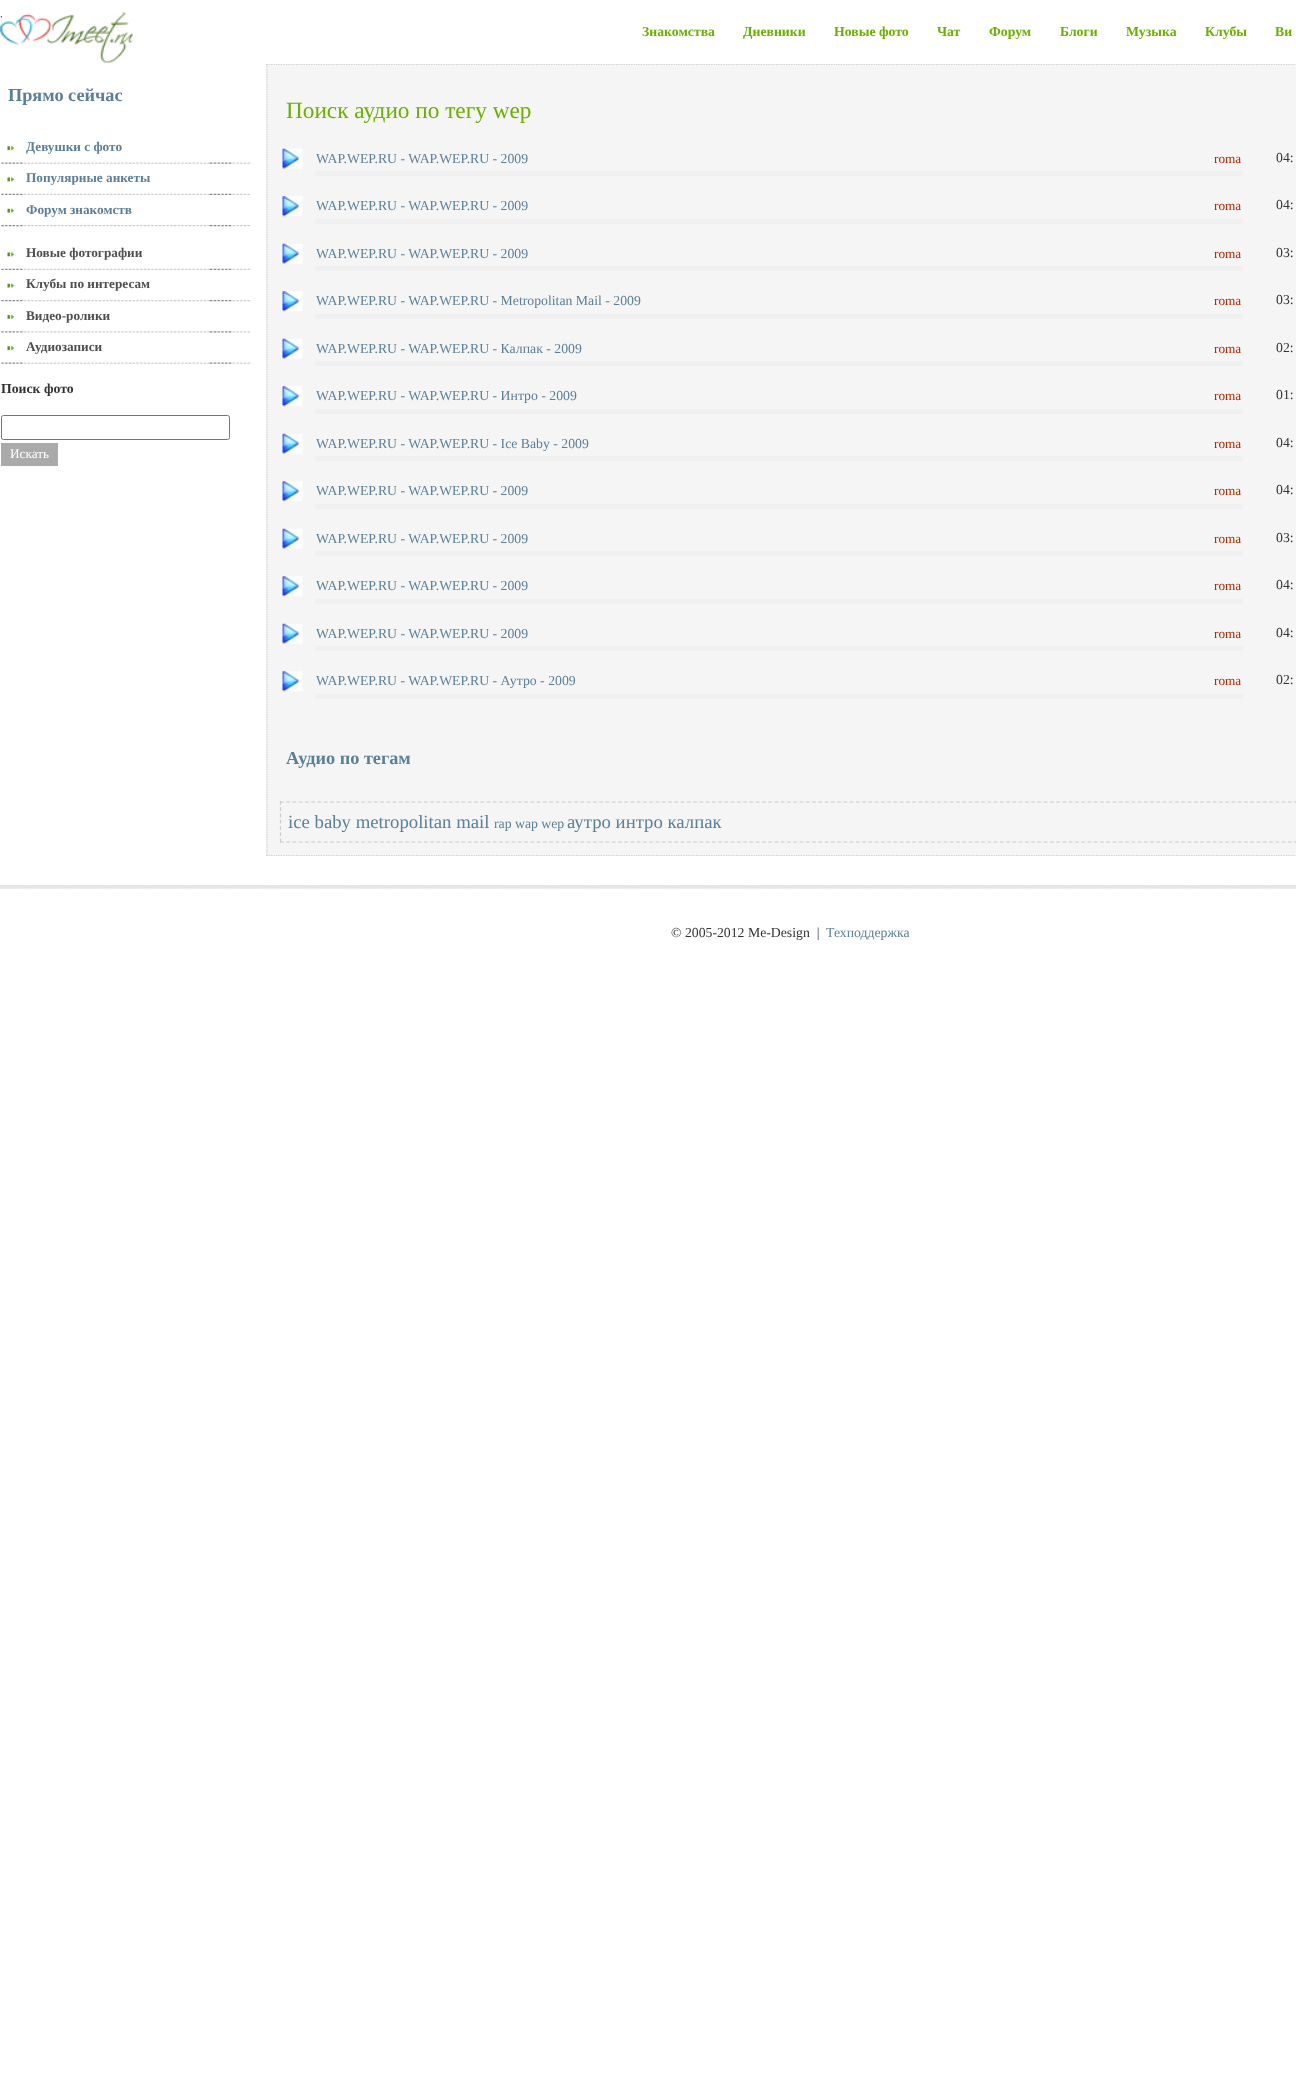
async function draw(canvas) {
  canvas.width = 1296
  canvas.height = 2091
  const ctx = canvas.getContext('2d')
  ctx.miterLimit = 4
  ctx.fontKerning = 'normal'
  async function loadImage(src) {
    const img = new Image()
    img.src = src
    await img.decode()
    return img
  }

  ctx.fillStyle = '#fff'
  ctx.fillRect(0, 0, 1296, 2091)
  ctx.drawImage(await loadImage('image0.png'), 0, 12, 133, 51)
  ctx.font = 'bold 13.75px Liberation Serif'
  ctx.fillStyle = '#6baf00'
  ctx.fillText('Знакомства', 642, 36)
  ctx.fillText('Дневники', 743, 36)
  ctx.fillText('Новые фото', 834, 36)
  ctx.fillText('Чат', 937, 36)
  ctx.fillText('Форум', 989, 36)
  ctx.fillText('Блоги', 1060, 36)
  ctx.fillText('Музыка', 1126, 36)
  ctx.fillText('Клубы', 1205, 36)
  ctx.fillText('Ви', 1275, 36)
  ctx.font = 'bold 18.25px Liberation Serif'
  ctx.fillStyle = '#5b7f97'
  ctx.fillText('Прямо сейчас', 8, 101)
  ctx.drawImage(await loadImage('image1.png'), 1, 162, 251, 2)
  ctx.drawImage(await loadImage('image2.png'), 7, 146, 7, 5)
  ctx.font = 'bold 13.25px Liberation Serif'
  ctx.fillText('Девушки с фото', 26, 151)
  ctx.drawImage(await loadImage('image3.png'), 1, 193, 251, 2)
  ctx.drawImage(await loadImage('image4.png'), 7, 177, 7, 5)
  ctx.fillText('Популярные анкеты', 26, 182)
  ctx.drawImage(await loadImage('image5.png'), 1, 225, 251, 2)
  ctx.drawImage(await loadImage('image6.png'), 7, 208, 7, 5)
  ctx.fillText('Форум знакомств', 26, 214)
  ctx.drawImage(await loadImage('image7.png'), 1, 268, 251, 2)
  ctx.drawImage(await loadImage('image4.png'), 7, 252, 7, 5)
  ctx.fillStyle = '#4f4f4f'
  ctx.fillText('Новые фотографии', 26, 257)
  ctx.drawImage(await loadImage('image5.png'), 1, 300, 251, 2)
  ctx.drawImage(await loadImage('image6.png'), 7, 283, 7, 5)
  ctx.fillText('Клубы по интересам', 26, 288)
  ctx.drawImage(await loadImage('image8.png'), 1, 331, 251, 2)
  ctx.drawImage(await loadImage('image9.png'), 7, 314, 7, 5)
  ctx.fillText('Видео-ролики', 26, 320)
  ctx.drawImage(await loadImage('image1.png'), 1, 362, 251, 2)
  ctx.drawImage(await loadImage('image2.png'), 7, 346, 7, 5)
  ctx.fillText('Аудиозаписи', 26, 351)
  ctx.font = 'bold 13.75px Liberation Serif'
  ctx.fillStyle = '#333'
  ctx.fillText('Поиск фото', 1, 393)
  ctx.beginPath()
  ctx.roundRect(1.5, 415.5, 228, 24, 2)
  ctx.strokeStyle = '#767676'
  ctx.stroke()
  ctx.fillStyle = '#aaa'
  ctx.fillRect(1, 443, 57, 23)
  ctx.font = '13.25px Liberation Serif'
  ctx.fillStyle = '#fff'
  ctx.fillText('Искать', 10, 458)
  ctx.fillStyle = '#f5f5f5'
  ctx.fillRect(266, 64, 1030, 792)
  ctx.beginPath()
  ctx.moveTo(266, 64.5)
  ctx.lineTo(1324, 64.5)
  ctx.strokeStyle = '#d0d0d0'
  ctx.lineWidth = 1.2
  ctx.setLineDash([1.25, 1.25])
  ctx.stroke()
  ctx.beginPath()
  ctx.moveTo(266, 855.5)
  ctx.lineTo(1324, 855.5)
  ctx.stroke()
  ctx.beginPath()
  ctx.moveTo(267, 64)
  ctx.lineTo(267, 856)
  ctx.stroke()
  ctx.font = '23.25px Liberation Serif'
  ctx.fillStyle = '#6baf00'
  ctx.fillText('Поиск аудио по тегу wep', 286, 118)
  ctx.drawImage(await loadImage('image10.png'), 0, 16, 2, 2)
  ctx.drawImage(await loadImage('image11.png'), 282, 148, 21, 21)
  ctx.font = '13.75px Liberation Serif'
  ctx.fillStyle = '#5b7f97'
  ctx.fillText('WAP.WEP.RU - WAP.WEP.RU - 2009', 316, 163)
  ctx.font = '13.25px Liberation Serif'
  ctx.fillStyle = '#ac2801'
  ctx.fillText('roma', 1214, 163)
  ctx.fillStyle = '#f0f0f0'
  ctx.fillRect(315, 171, 928, 5)
  ctx.font = '13.75px Liberation Serif'
  ctx.fillStyle = '#333'
  ctx.fillText('04:', 1276, 162)
  ctx.drawImage(await loadImage('image12.png'), 0, 16, 2, 2)
  ctx.drawImage(await loadImage('image13.png'), 282, 196, 21, 21)
  ctx.fillStyle = '#5b7f97'
  ctx.fillText('WAP.WEP.RU - WAP.WEP.RU - 2009', 316, 210)
  ctx.font = '13.25px Liberation Serif'
  ctx.fillStyle = '#ac2801'
  ctx.fillText('roma', 1214, 210)
  ctx.fillStyle = '#f0f0f0'
  ctx.fillRect(315, 219, 928, 5)
  ctx.font = '13.75px Liberation Serif'
  ctx.fillStyle = '#333'
  ctx.fillText('04:', 1276, 209)
  ctx.drawImage(await loadImage('image14.png'), 0, 16, 2, 2)
  ctx.drawImage(await loadImage('image11.png'), 282, 243, 21, 21)
  ctx.fillStyle = '#5b7f97'
  ctx.fillText('WAP.WEP.RU - WAP.WEP.RU - 2009', 316, 258)
  ctx.font = '13.25px Liberation Serif'
  ctx.fillStyle = '#ac2801'
  ctx.fillText('roma', 1214, 258)
  ctx.fillStyle = '#f0f0f0'
  ctx.fillRect(315, 266, 928, 5)
  ctx.font = '13.75px Liberation Serif'
  ctx.fillStyle = '#333'
  ctx.fillText('03:', 1276, 257)
  ctx.drawImage(await loadImage('image15.png'), 0, 16, 2, 2)
  ctx.drawImage(await loadImage('image16.png'), 282, 291, 21, 21)
  ctx.fillStyle = '#5b7f97'
  ctx.fillText('WAP.WEP.RU - WAP.WEP.RU - Metropolitan Mail - 2009', 316, 305)
  ctx.font = '13.25px Liberation Serif'
  ctx.fillStyle = '#ac2801'
  ctx.fillText('roma', 1214, 305)
  ctx.fillStyle = '#f0f0f0'
  ctx.fillRect(315, 314, 928, 5)
  ctx.font = '13.75px Liberation Serif'
  ctx.fillStyle = '#333'
  ctx.fillText('03:', 1276, 304)
  ctx.drawImage(await loadImage('image17.png'), 0, 16, 2, 2)
  ctx.drawImage(await loadImage('image11.png'), 282, 338, 21, 21)
  ctx.fillStyle = '#5b7f97'
  ctx.fillText('WAP.WEP.RU - WAP.WEP.RU - Калпак - 2009', 316, 353)
  ctx.font = '13.25px Liberation Serif'
  ctx.fillStyle = '#ac2801'
  ctx.fillText('roma', 1214, 353)
  ctx.fillStyle = '#f0f0f0'
  ctx.fillRect(315, 361, 928, 5)
  ctx.font = '13.75px Liberation Serif'
  ctx.fillStyle = '#333'
  ctx.fillText('02:', 1276, 352)
  ctx.drawImage(await loadImage('image18.png'), 1, 16, 1, 2)
  ctx.drawImage(await loadImage('image13.png'), 282, 386, 21, 21)
  ctx.fillStyle = '#5b7f97'
  ctx.fillText('WAP.WEP.RU - WAP.WEP.RU - Интро - 2009', 316, 400)
  ctx.font = '13.25px Liberation Serif'
  ctx.fillStyle = '#ac2801'
  ctx.fillText('roma', 1214, 400)
  ctx.fillStyle = '#f0f0f0'
  ctx.fillRect(315, 409, 928, 5)
  ctx.font = '13.75px Liberation Serif'
  ctx.fillStyle = '#333'
  ctx.fillText('01:', 1276, 399)
  ctx.drawImage(await loadImage('image19.png'), 1, 16, 1, 2)
  ctx.drawImage(await loadImage('image11.png'), 282, 433, 21, 21)
  ctx.fillStyle = '#5b7f97'
  ctx.fillText('WAP.WEP.RU - WAP.WEP.RU - Ice Baby - 2009', 316, 448)
  ctx.font = '13.25px Liberation Serif'
  ctx.fillStyle = '#ac2801'
  ctx.fillText('roma', 1214, 448)
  ctx.fillStyle = '#f0f0f0'
  ctx.fillRect(315, 456, 928, 5)
  ctx.font = '13.75px Liberation Serif'
  ctx.fillStyle = '#333'
  ctx.fillText('04:', 1276, 447)
  ctx.drawImage(await loadImage('image20.png'), 1, 16, 1, 2)
  ctx.drawImage(await loadImage('image13.png'), 282, 481, 21, 21)
  ctx.fillStyle = '#5b7f97'
  ctx.fillText('WAP.WEP.RU - WAP.WEP.RU - 2009', 316, 495)
  ctx.font = '13.25px Liberation Serif'
  ctx.fillStyle = '#ac2801'
  ctx.fillText('roma', 1214, 495)
  ctx.fillStyle = '#f0f0f0'
  ctx.fillRect(315, 504, 928, 5)
  ctx.font = '13.75px Liberation Serif'
  ctx.fillStyle = '#333'
  ctx.fillText('04:', 1276, 494)
  ctx.drawImage(await loadImage('image21.png'), 1, 16, 1, 2)
  ctx.drawImage(await loadImage('image11.png'), 282, 528, 21, 21)
  ctx.fillStyle = '#5b7f97'
  ctx.fillText('WAP.WEP.RU - WAP.WEP.RU - 2009', 316, 543)
  ctx.font = '13.25px Liberation Serif'
  ctx.fillStyle = '#ac2801'
  ctx.fillText('roma', 1214, 543)
  ctx.fillStyle = '#f0f0f0'
  ctx.fillRect(315, 551, 928, 5)
  ctx.font = '13.75px Liberation Serif'
  ctx.fillStyle = '#333'
  ctx.fillText('03:', 1276, 542)
  ctx.drawImage(await loadImage('image22.png'), 1, 16, 1, 2)
  ctx.drawImage(await loadImage('image23.png'), 282, 576, 21, 21)
  ctx.fillStyle = '#5b7f97'
  ctx.fillText('WAP.WEP.RU - WAP.WEP.RU - 2009', 316, 590)
  ctx.font = '13.25px Liberation Serif'
  ctx.fillStyle = '#ac2801'
  ctx.fillText('roma', 1214, 590)
  ctx.fillStyle = '#f0f0f0'
  ctx.fillRect(315, 599, 928, 5)
  ctx.font = '13.75px Liberation Serif'
  ctx.fillStyle = '#333'
  ctx.fillText('04:', 1276, 589)
  ctx.drawImage(await loadImage('image24.png'), 1, 16, 1, 2)
  ctx.drawImage(await loadImage('image11.png'), 282, 623, 21, 21)
  ctx.fillStyle = '#5b7f97'
  ctx.fillText('WAP.WEP.RU - WAP.WEP.RU - 2009', 316, 638)
  ctx.font = '13.25px Liberation Serif'
  ctx.fillStyle = '#ac2801'
  ctx.fillText('roma', 1214, 638)
  ctx.fillStyle = '#f0f0f0'
  ctx.fillRect(315, 646, 928, 5)
  ctx.font = '13.75px Liberation Serif'
  ctx.fillStyle = '#333'
  ctx.fillText('04:', 1276, 637)
  ctx.drawImage(await loadImage('image25.png'), 1, 16, 1, 2)
  ctx.drawImage(await loadImage('image13.png'), 282, 671, 21, 21)
  ctx.fillStyle = '#5b7f97'
  ctx.fillText('WAP.WEP.RU - WAP.WEP.RU - Аутро - 2009', 316, 685)
  ctx.font = '13.25px Liberation Serif'
  ctx.fillStyle = '#ac2801'
  ctx.fillText('roma', 1214, 685)
  ctx.fillStyle = '#f0f0f0'
  ctx.fillRect(315, 694, 928, 5)
  ctx.font = '13.75px Liberation Serif'
  ctx.fillStyle = '#333'
  ctx.fillText('02:', 1276, 684)
  ctx.font = 'bold 18.25px Liberation Serif'
  ctx.fillStyle = '#5b7f97'
  ctx.fillText('Аудио по тегам', 286, 764)
  ctx.beginPath()
  ctx.moveTo(280, 802)
  ctx.lineTo(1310, 802)
  ctx.strokeStyle = '#ccc'
  ctx.setLineDash([3.75, 2.51])
  ctx.stroke()
  ctx.beginPath()
  ctx.moveTo(280, 842)
  ctx.lineTo(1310, 842)
  ctx.stroke()
  ctx.beginPath()
  ctx.moveTo(280.5, 801)
  ctx.lineTo(280.5, 842.5)
  ctx.setLineDash([3.75, 2.5])
  ctx.stroke()
  ctx.font = '18.75px Liberation Serif'
  ctx.fillText('ice baby metropolitan mail', 288, 828)
  ctx.font = '13.75px Liberation Serif'
  ctx.fillText('rap wap wep', 494, 828)
  ctx.font = '18.75px Liberation Serif'
  ctx.fillText('аутро интро калпак', 567, 828)
  ctx.drawImage(await loadImage('image26.png'), 0, 885, 1296, 4)
  ctx.font = '13.75px Liberation Serif'
  ctx.fillStyle = '#333'
  ctx.fillText('© 2005-2012 Me-Design  |', 671, 937)
  ctx.fillStyle = '#5b7f97'
  ctx.fillText('Техподдержка', 826, 937)
}

draw(document.querySelector('canvas'))
